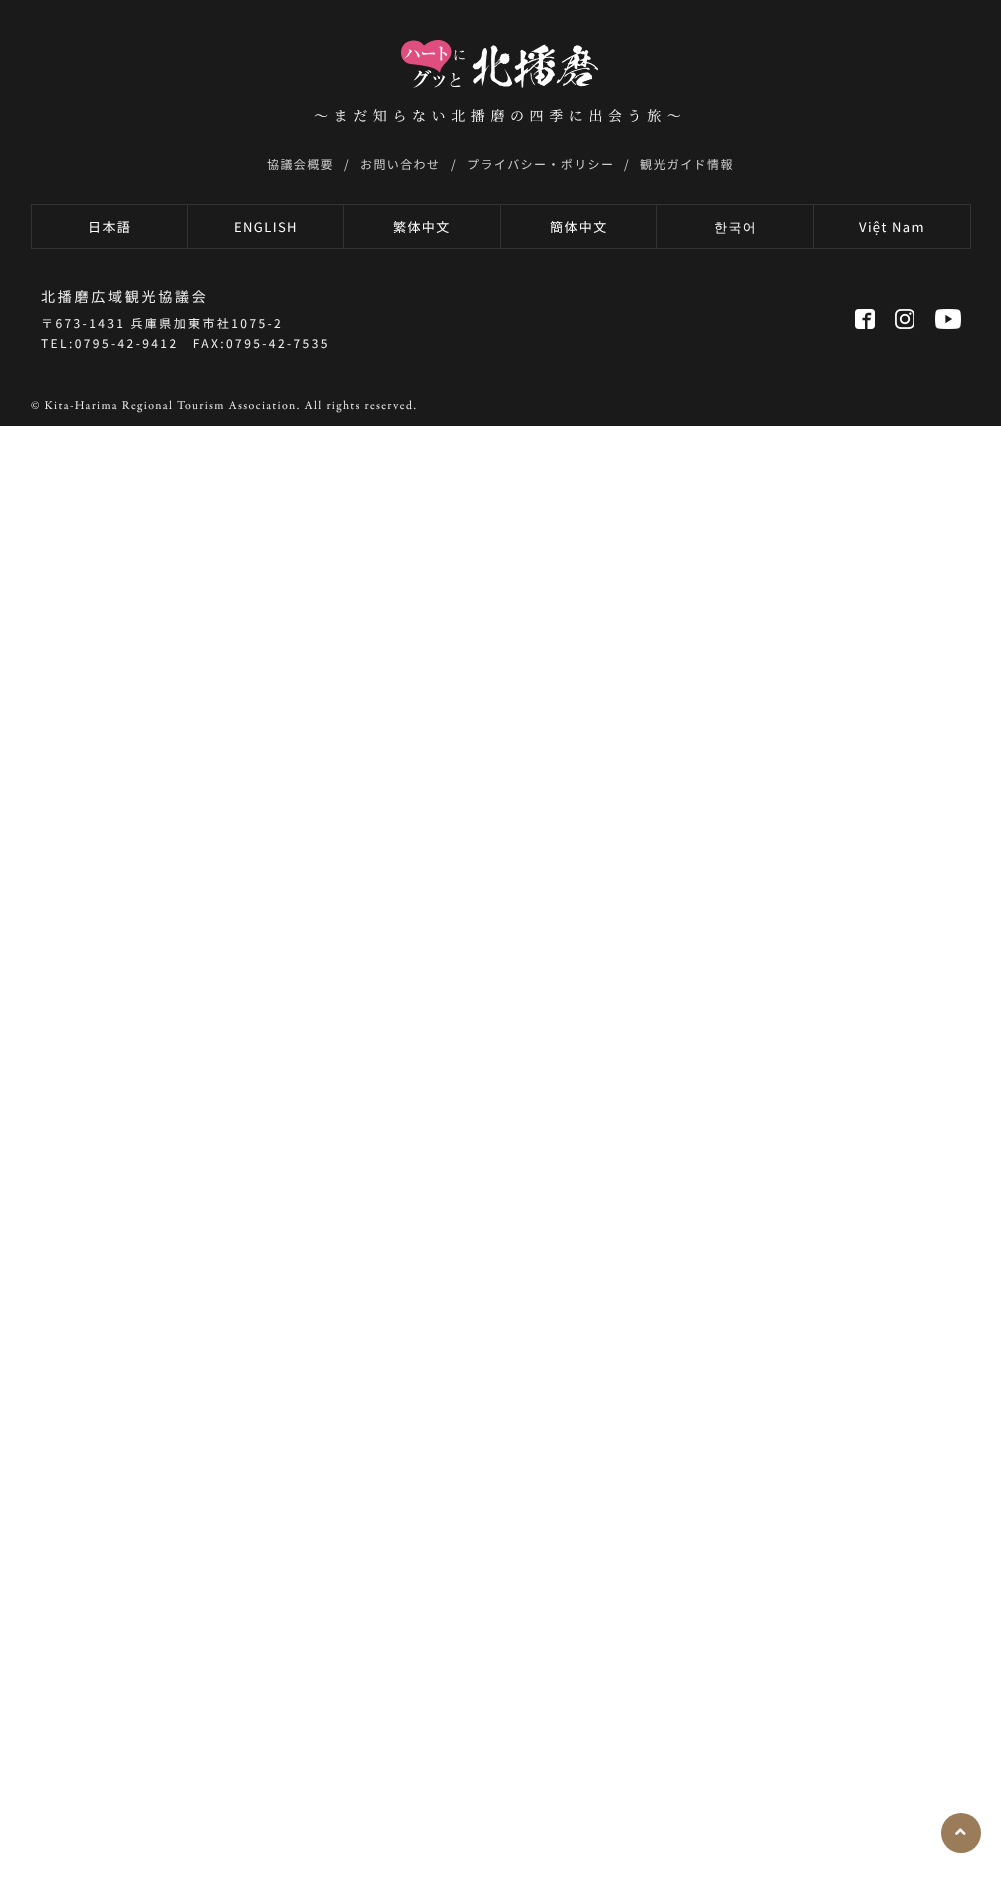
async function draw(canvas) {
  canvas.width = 1001
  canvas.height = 1893
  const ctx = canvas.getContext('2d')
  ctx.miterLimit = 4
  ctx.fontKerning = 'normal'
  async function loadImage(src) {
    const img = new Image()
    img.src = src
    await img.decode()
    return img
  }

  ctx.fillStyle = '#fff'
  ctx.fillRect(0, 0, 1001, 1893)
  ctx.fillStyle = '#1a1a1a'
  ctx.fillRect(0, 0, 1001, 426)
  ctx.drawImage(await loadImage('image0.png'), 401, 40, 197, 48)
  ctx.letterSpacing = '5.6px'
  ctx.font = '14px Noto Serif JP'
  ctx.fillStyle = '#fff'
  ctx.fillText('～まだ知らない北播磨の四季に出会う旅～', 314, 121)
  ctx.letterSpacing = '1.4px'
  ctx.font = '12px Noto Sans JP'
  ctx.fillStyle = '#ccc'
  ctx.fillText('協議会概要', 267, 169)
  ctx.fillText('/', 344, 169)
  ctx.fillText('お問い合わせ', 360, 169)
  ctx.fillText('/', 451, 169)
  ctx.fillText('プライバシー・ポリシー', 467, 169)
  ctx.fillText('/', 624, 169)
  ctx.fillText('観光ガイド情報', 640, 169)
  ctx.fillStyle = '#333'
  ctx.fillRect(31, 204, 940, 1)
  ctx.fillRect(970, 204, 1, 45)
  ctx.fillRect(31, 248, 940, 1)
  ctx.fillRect(31, 205, 1, 43)
  ctx.font = '13px Noto Sans JP'
  ctx.fillStyle = '#fff'
  ctx.fillText('日本語', 88, 232)
  ctx.fillStyle = '#333'
  ctx.fillRect(187, 205, 1, 43)
  ctx.fillStyle = '#fff'
  ctx.fillText('ENGLISH', 234, 232)
  ctx.fillStyle = '#333'
  ctx.fillRect(343, 205, 1, 43)
  ctx.fillStyle = '#fff'
  ctx.fillText('繁体中文', 393, 232)
  ctx.fillStyle = '#333'
  ctx.fillRect(500, 205, 1, 43)
  ctx.fillStyle = '#fff'
  ctx.fillText('簡体中文', 550, 232)
  ctx.fillStyle = '#333'
  ctx.fillRect(656, 205, 1, 43)
  ctx.font = '500 13px WenQuanYi Zen Hei'
  ctx.fillStyle = '#fff'
  ctx.fillText('한국어', 714, 232)
  ctx.fillStyle = '#333'
  ctx.fillRect(813, 205, 1, 43)
  ctx.font = '13px Noto Sans JP'
  ctx.fillStyle = '#fff'
  ctx.fillText('Việt Nam', 859, 232)
  ctx.letterSpacing = '2.75px'
  ctx.font = '14px Noto Sans JP'
  ctx.fillStyle = '#eee'
  ctx.fillText('北播磨広域観光協議会', 41, 302)
  ctx.letterSpacing = '2.4px'
  ctx.font = '12px Noto Sans JP'
  ctx.fillText('〒673-1431 兵庫県加東市社1075-2', 41, 328)
  ctx.fillText('TEL:0795-42-9412　FAX:0795-42-7535', 41, 348)
  ctx.drawImage(await loadImage('image1.png'), 855, 309, 20, 20)
  ctx.drawImage(await loadImage('image2.png'), 895, 309, 19, 20)
  ctx.drawImage(await loadImage('image3.png'), 935, 309, 26, 20)
  ctx.letterSpacing = '1.4px'
  ctx.font = '12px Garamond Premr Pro'
  ctx.fillText('© Kita-Harima Regional Tourism Association. All rights reserved.', 31, 409)
  ctx.fillStyle = '#9a7c5a'
  ctx.beginPath()
  ctx.arc(961, 1833, 20, 0, 2 * Math.PI)
  ctx.fill()
  ctx.drawImage(await loadImage('image4.png'), 955, 1828, 11, 7)
}

draw(document.querySelector('canvas'))
